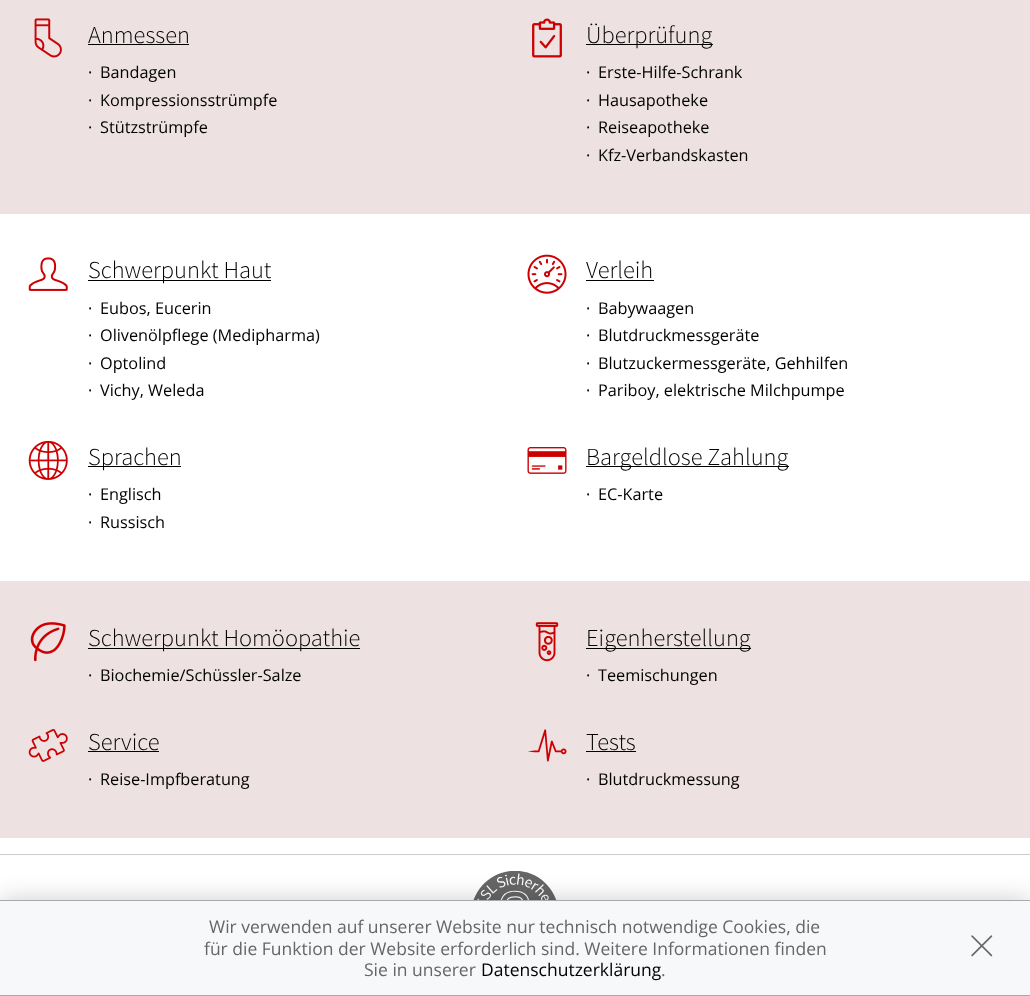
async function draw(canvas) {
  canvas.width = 1030
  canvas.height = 996
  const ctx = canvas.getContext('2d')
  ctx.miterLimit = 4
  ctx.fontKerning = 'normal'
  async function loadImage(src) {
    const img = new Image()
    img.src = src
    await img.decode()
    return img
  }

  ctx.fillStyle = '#fff'
  ctx.fillRect(0, 0, 1030, 996)
  ctx.fillStyle = '#ede1e2'
  ctx.fillRect(0, 0, 1030, 214)
  ctx.drawImage(await loadImage('image0.png'), 34, 18, 28, 40)
  ctx.font = '300 24.4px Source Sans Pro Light'
  ctx.fillStyle = '#000'
  ctx.fillText('Anmessen', 88, 43)
  ctx.fillRect(88, 44, 101, 1)
  ctx.font = '16.25px Open Sans'
  ctx.fillText('·', 88, 78)
  ctx.fillText('Bandagen', 100, 78)
  ctx.fillText('·', 88, 106)
  ctx.fillText('Kompressionsstrümpfe', 100, 106)
  ctx.fillText('·', 88, 133)
  ctx.fillText('Stützstrümpfe', 100, 133)
  ctx.drawImage(await loadImage('image1.png'), 532, 18, 30, 40)
  ctx.fillRect(586, 44, 127, 1)
  ctx.font = '300 24.4px Source Sans Pro Light'
  ctx.fillText('Überprüfung', 586, 43)
  ctx.font = '16.25px Open Sans'
  ctx.fillText('·', 586, 78)
  ctx.fillText('Erste-Hilfe-Schrank', 598, 78)
  ctx.fillText('·', 586, 106)
  ctx.fillText('Hausapotheke', 598, 106)
  ctx.fillText('·', 586, 133)
  ctx.fillText('Reiseapotheke', 598, 133)
  ctx.fillText('·', 586, 161)
  ctx.fillText('Kfz-Verbandskasten', 598, 161)
  ctx.drawImage(await loadImage('image2.png'), 28, 257, 40, 34)
  ctx.fillRect(88, 280, 183, 1)
  ctx.font = '300 24.4px Source Sans Pro Light'
  ctx.fillText('Schwerpunkt Haut', 88, 278)
  ctx.font = '16.25px Open Sans'
  ctx.fillText('·', 88, 314)
  ctx.fillText('Eubos, Eucerin', 100, 314)
  ctx.fillText('·', 88, 341)
  ctx.fillText('Olivenölpflege (Medipharma)', 100, 341)
  ctx.fillText('·', 88, 369)
  ctx.fillText('Optolind', 100, 369)
  ctx.fillText('·', 88, 396)
  ctx.fillText('Vichy, Weleda', 100, 396)
  ctx.drawImage(await loadImage('image3.png'), 527, 254, 40, 40)
  ctx.font = '300 24.4px Source Sans Pro Light'
  ctx.fillText('Verleih', 586, 278)
  ctx.fillRect(586, 280, 68, 1)
  ctx.font = '16.25px Open Sans'
  ctx.fillText('·', 586, 314)
  ctx.fillText('Babywaagen', 598, 314)
  ctx.fillText('·', 586, 341)
  ctx.fillText('Blutdruckmessgeräte', 598, 341)
  ctx.fillText('·', 586, 369)
  ctx.fillText('Blutzuckermessgeräte, Gehhilfen', 598, 369)
  ctx.fillText('·', 586, 396)
  ctx.fillText('Pariboy, elektrische Milchpumpe', 598, 396)
  ctx.drawImage(await loadImage('image4.png'), 28, 440, 40, 40)
  ctx.fillRect(88, 466, 93, 1)
  ctx.font = '300 24.4px Source Sans Pro Light'
  ctx.fillText('Sprachen', 88, 465)
  ctx.font = '16.25px Open Sans'
  ctx.fillText('·', 88, 500)
  ctx.fillText('Englisch', 100, 500)
  ctx.fillText('·', 88, 528)
  ctx.fillText('Russisch', 100, 528)
  ctx.drawImage(await loadImage('image5.png'), 527, 447, 40, 27)
  ctx.fillRect(586, 466, 203, 1)
  ctx.font = '300 24.4px Source Sans Pro Light'
  ctx.fillText('Bargeldlose Zahlung', 586, 465)
  ctx.font = '16.25px Open Sans'
  ctx.fillText('·', 586, 500)
  ctx.fillText('EC-Karte', 598, 500)
  ctx.fillStyle = '#ede1e2'
  ctx.fillRect(0, 581, 1030, 257)
  ctx.drawImage(await loadImage('image6.png'), 30, 622, 36, 40)
  ctx.fillStyle = '#000'
  ctx.fillRect(88, 648, 272, 1)
  ctx.font = '300 24.4px Source Sans Pro Light'
  ctx.fillText('Schwerpunkt Homöopathie', 88, 646)
  ctx.font = '16.25px Open Sans'
  ctx.fillText('·', 88, 681)
  ctx.fillText('Biochemie/Schüssler-Salze', 100, 681)
  ctx.drawImage(await loadImage('image7.png'), 535, 622, 24, 40)
  ctx.fillRect(586, 648, 165, 1)
  ctx.font = '300 24.4px Source Sans Pro Light'
  ctx.fillText('Eigenherstellung', 586, 646)
  ctx.font = '16.25px Open Sans'
  ctx.fillText('·', 586, 681)
  ctx.fillText('Teemischungen', 598, 681)
  ctx.drawImage(await loadImage('image8.png'), 28, 729, 40, 33)
  ctx.font = '300 24.4px Source Sans Pro Light'
  ctx.fillText('Service', 88, 750)
  ctx.fillRect(88, 751, 71, 1)
  ctx.font = '16.25px Open Sans'
  ctx.fillText('·', 88, 785)
  ctx.fillText('Reise-Impfberatung', 100, 785)
  ctx.drawImage(await loadImage('image9.png'), 527, 729, 40, 33)
  ctx.font = '300 24.4px Source Sans Pro Light'
  ctx.fillText('Tests', 586, 750)
  ctx.fillRect(586, 751, 50, 1)
  ctx.font = '16.25px Open Sans'
  ctx.fillText('·', 586, 785)
  ctx.fillText('Blutdruckmessung', 598, 785)
  ctx.fillStyle = '#ccc'
  ctx.fillRect(0, 854, 1030, 1)
  ctx.drawImage(await loadImage('image10.png'), 473, 871, 84, 29)
  ctx.fillStyle = '#00000033'
  ctx.filter = 'blur(12.5px)'
  ctx.beginPath()
  ctx.rect(0, 900, 1030, 96)
  ctx.fill()
  ctx.filter = 'none'
  ctx.fillStyle = '#f7f8f9'
  ctx.fillRect(0, 901, 1030, 94)
  ctx.fillStyle = '#a9a9a9'
  ctx.fillRect(0, 900, 1030, 1)
  ctx.fillRect(0, 995, 1030, 1)
  ctx.font = '17.5px Open Sans'
  ctx.fillStyle = '#666'
  ctx.fillText('Wir verwenden auf unserer Website nur technisch notwendige Cookies, die', 209, 933)
  ctx.fillText('für die Funktion der Website erforderlich sind. Weitere Informationen finden', 204, 955)
  ctx.fillText('Sie in unserer', 364, 976)
  ctx.fillStyle = '#000'
  ctx.fillText('Datenschutzerklärung', 481, 976)
  ctx.fillStyle = '#666'
  ctx.fillText('.', 661, 976)
  ctx.drawImage(await loadImage('image11.png'), 971, 935, 22, 22)
}

draw(document.querySelector('canvas'))
